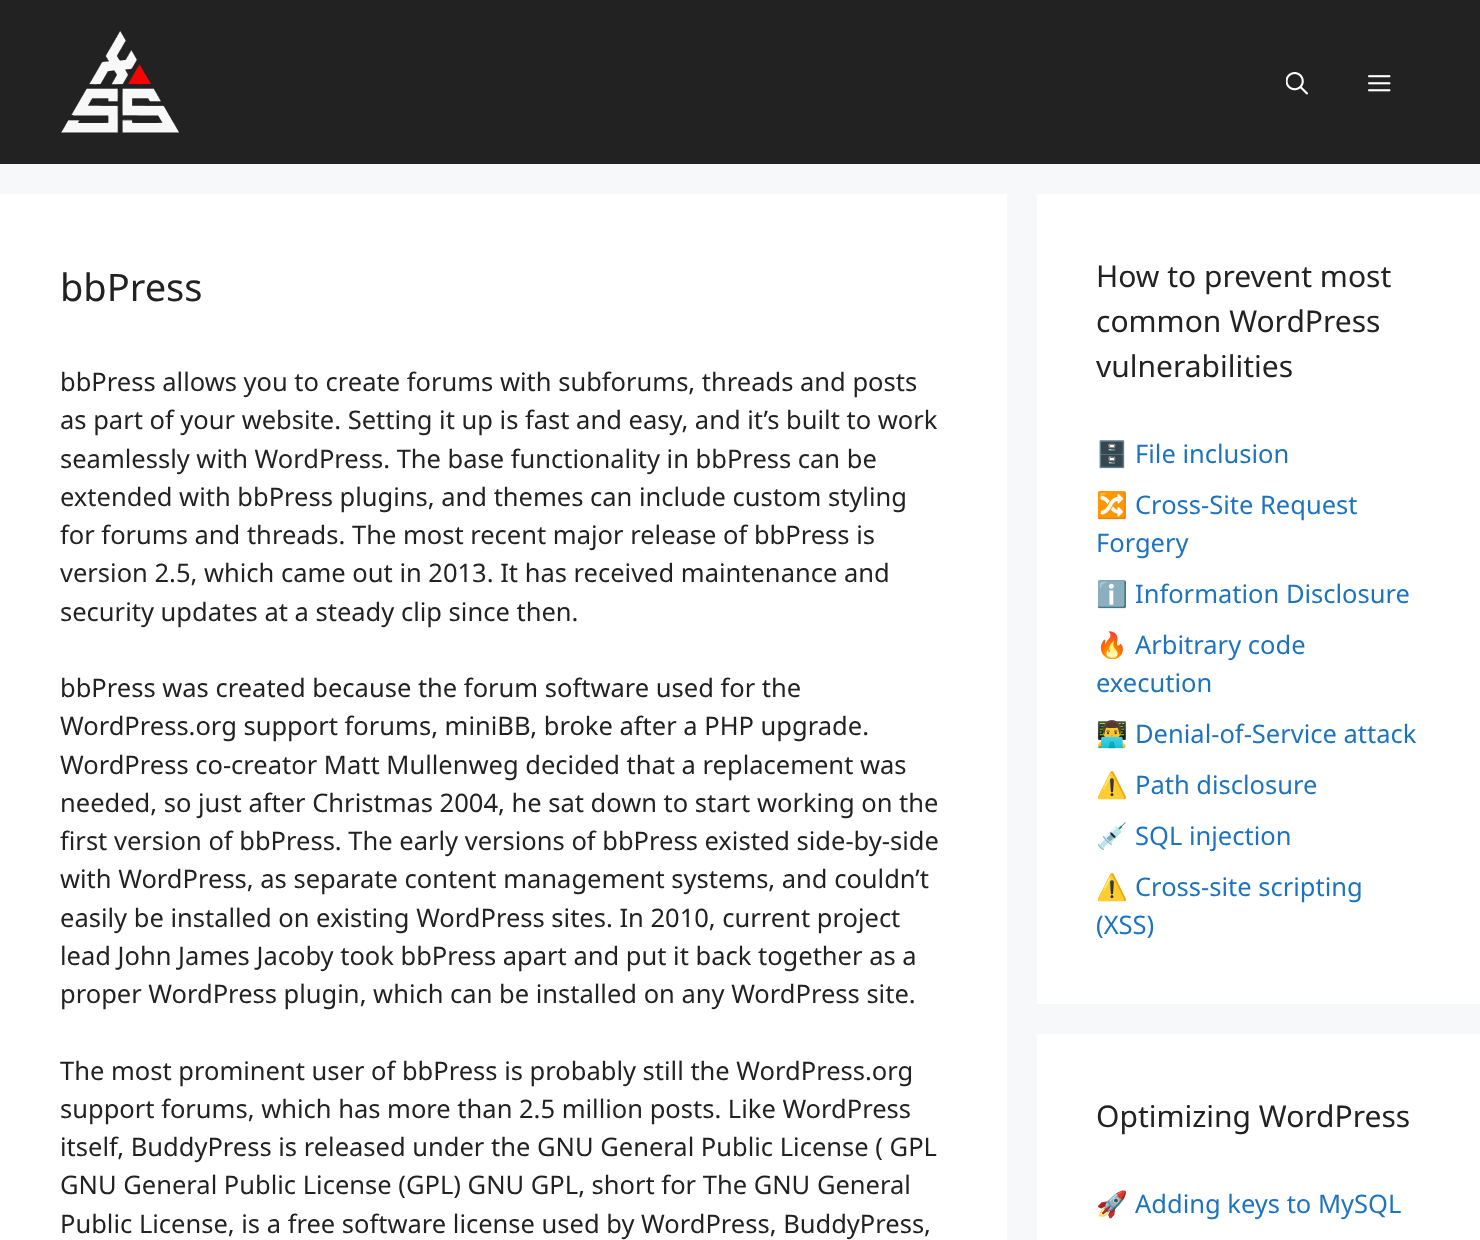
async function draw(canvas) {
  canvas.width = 1480
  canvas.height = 1240
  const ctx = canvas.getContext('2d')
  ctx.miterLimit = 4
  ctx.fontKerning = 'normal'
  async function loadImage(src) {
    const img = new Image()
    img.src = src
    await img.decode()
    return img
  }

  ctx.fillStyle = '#f7f8f9'
  ctx.fillRect(0, 0, 1480, 1240)
  ctx.fillStyle = '#222'
  ctx.fillRect(0, 0, 1480, 164)
  ctx.drawImage(await loadImage('image0.png'), 61, 31, 119, 102)
  ctx.drawImage(await loadImage('image1.png'), 1286, 72, 22, 23)
  ctx.drawImage(await loadImage('image2.png'), 1368, 75, 23, 17)
  ctx.fillStyle = '#fff'
  ctx.fillRect(0, 194, 1007, 1046)
  ctx.font = '38px Noto Sans'
  ctx.fillStyle = '#222'
  ctx.fillText('bbPress', 60, 301)
  ctx.font = '25.5px Noto Sans'
  ctx.fillText('bbPress allows you to create forums with subforums, threads and posts', 60, 391)
  ctx.fillText('as part of your website. Setting it up is fast and easy, and it’s built to work', 60, 429)
  ctx.fillText('seamlessly with WordPress. The base functionality in bbPress can be', 60, 468)
  ctx.fillText('extended with bbPress plugins, and themes can include custom styling', 60, 506)
  ctx.fillText('for forums and threads. The most recent major release of bbPress is', 60, 544)
  ctx.fillText('version 2.5, which came out in 2013. It has received maintenance and', 60, 582)
  ctx.fillText('security updates at a steady clip since then.', 60, 621)
  ctx.fillText('bbPress was created because the forum software used for the', 60, 697)
  ctx.fillText('WordPress.org support forums, miniBB, broke after a PHP upgrade.', 60, 735)
  ctx.fillText('WordPress co-creator Matt Mullenweg decided that a replacement was', 60, 774)
  ctx.fillText('needed, so just after Christmas 2004, he sat down to start working on the', 60, 812)
  ctx.fillText('first version of bbPress. The early versions of bbPress existed side-by-side', 60, 850)
  ctx.fillText('with WordPress, as separate content management systems, and couldn’t', 60, 888)
  ctx.fillText('easily be installed on existing WordPress sites. In 2010, current project', 60, 927)
  ctx.fillText('lead John James Jacoby took bbPress apart and put it back together as a', 60, 965)
  ctx.fillText('proper WordPress plugin, which can be installed on any WordPress site.', 60, 1003)
  ctx.fillText('The most prominent user of bbPress is probably still the WordPress.org', 60, 1080)
  ctx.fillText('support forums, which has more than 2.5 million posts. Like WordPress', 60, 1118)
  ctx.fillText('itself, BuddyPress is released under the GNU General Public License ( GPL', 60, 1156)
  ctx.fillText('GNU General Public License (GPL) GNU GPL, short for The GNU General', 60, 1194)
  ctx.fillText('Public License, is a free software license used by WordPress, BuddyPress,', 60, 1233)
  ctx.fillStyle = '#fff'
  ctx.fillRect(1037, 194, 443, 810)
  ctx.font = '30px Noto Sans'
  ctx.fillStyle = '#222'
  ctx.fillText('How to prevent most', 1096, 287)
  ctx.fillText('common WordPress', 1096, 332)
  ctx.fillText('vulnerabilities', 1096, 377)
  ctx.font = '25.5px Noto Color Emoji'
  ctx.fillStyle = '#1e73be'
  ctx.fillText('🗄️', 1096, 463)
  ctx.font = '25.5px Noto Sans'
  ctx.fillText('File inclusion', 1135, 463)
  ctx.font = '25.5px Noto Color Emoji'
  ctx.fillText('🔀', 1096, 514)
  ctx.font = '25.5px Noto Sans'
  ctx.fillText('Cross-Site Request', 1135, 514)
  ctx.fillText('Forgery', 1096, 552)
  ctx.font = '25.5px Noto Color Emoji'
  ctx.fillText('ℹ️', 1096, 603)
  ctx.font = '25.5px Noto Sans'
  ctx.fillText('Information Disclosure', 1135, 603)
  ctx.font = '25.5px Noto Color Emoji'
  ctx.fillText('🔥', 1096, 654)
  ctx.font = '25.5px Noto Sans'
  ctx.fillText('Arbitrary code', 1135, 654)
  ctx.fillText('execution', 1096, 692)
  ctx.font = '25.5px Noto Color Emoji'
  ctx.fillText('👨‍💻', 1096, 743)
  ctx.font = '25.5px Noto Sans'
  ctx.fillText('Denial-of-Service attack', 1135, 743)
  ctx.font = '25.5px Noto Color Emoji'
  ctx.fillText('⚠️', 1096, 794)
  ctx.font = '25.5px Noto Sans'
  ctx.fillText('Path disclosure', 1135, 794)
  ctx.font = '25.5px Noto Color Emoji'
  ctx.fillText('💉', 1096, 845)
  ctx.font = '25.5px Noto Sans'
  ctx.fillText('SQL injection', 1135, 845)
  ctx.font = '25.5px Noto Color Emoji'
  ctx.fillText('⚠️', 1096, 896)
  ctx.font = '25.5px Noto Sans'
  ctx.fillText('Cross-site scripting', 1135, 896)
  ctx.fillText('(XSS)', 1096, 934)
  ctx.fillStyle = '#fff'
  ctx.fillRect(1037, 1034, 443, 206)
  ctx.font = '30px Noto Sans'
  ctx.fillStyle = '#222'
  ctx.fillText('Optimizing WordPress', 1096, 1127)
  ctx.font = '25.5px Noto Color Emoji'
  ctx.fillStyle = '#1e73be'
  ctx.fillText('🚀', 1096, 1213)
  ctx.font = '25.5px Noto Sans'
  ctx.fillText('Adding keys to MySQL', 1135, 1213)
}

draw(document.querySelector('canvas'))
